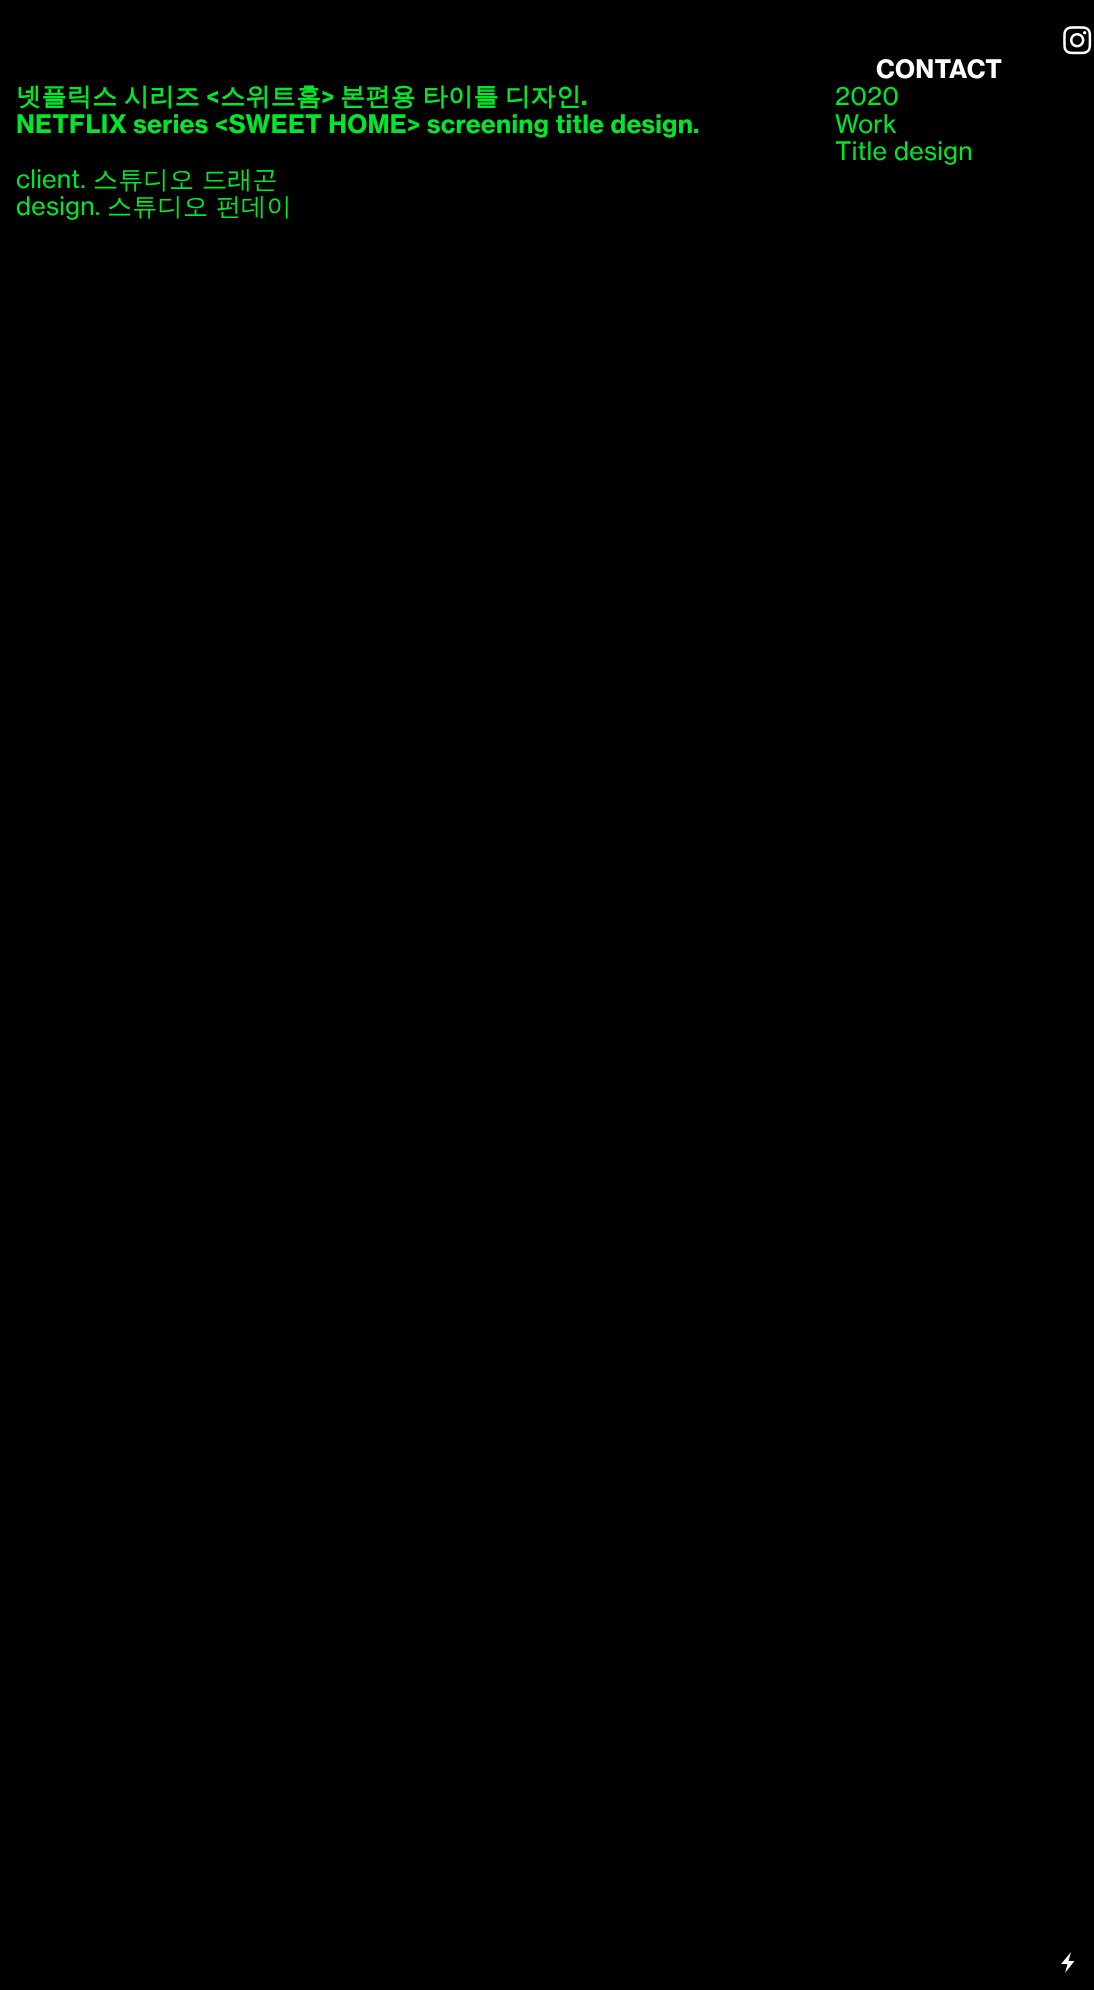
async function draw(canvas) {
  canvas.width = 1094
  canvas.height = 1990
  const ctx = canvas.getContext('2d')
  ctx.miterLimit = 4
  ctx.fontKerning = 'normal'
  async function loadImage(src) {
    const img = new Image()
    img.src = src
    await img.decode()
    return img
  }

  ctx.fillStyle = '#000'
  ctx.fillRect(0, 0, 1094, 1990)
  ctx.drawImage(await loadImage('image0.png'), 1063, 26, 29, 29)
  ctx.letterSpacing = '0.25px'
  ctx.font = 'bold 25.05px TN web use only'
  ctx.fillStyle = '#fff'
  ctx.fillText('CONTACT', 876, 78)
  ctx.wordSpacing = '-1px'
  ctx.font = 'bold 25.05px WenQuanYi Zen Hei'
  ctx.fillStyle = '#00e62a'
  ctx.fillText('넷플릭스 시리즈', 16, 105)
  ctx.wordSpacing = '0px'
  ctx.font = 'bold 25.05px TN web use only'
  ctx.fillText('<', 206, 105)
  ctx.font = 'bold 25.05px WenQuanYi Zen Hei'
  ctx.fillText('스위트홈', 220, 105)
  ctx.font = 'bold 25.05px TN web use only'
  ctx.fillText('>', 321, 105)
  ctx.wordSpacing = '-1px'
  ctx.font = 'bold 25.05px WenQuanYi Zen Hei'
  ctx.fillText('본편용 타이틀 디자인', 340, 105)
  ctx.wordSpacing = '0px'
  ctx.font = 'bold 25.05px TN web use only'
  ctx.fillText('.', 581, 105)
  ctx.fillText('NETFLIX series <SWEET HOME> screening title design.', 16, 133)
  ctx.font = '25.05px TN web use only'
  ctx.fillText('client.', 16, 188)
  ctx.font = '500 25.05px WenQuanYi Zen Hei'
  ctx.fillText('스튜디오 드래곤', 93, 188)
  ctx.font = '25.05px TN web use only'
  ctx.fillText('design.', 16, 215)
  ctx.font = '500 25.05px WenQuanYi Zen Hei'
  ctx.fillText('스튜디오 펀데이', 107, 215)
  ctx.font = '25.05px TN web use only'
  ctx.fillText('2020', 835, 105)
  ctx.fillText('Work', 835, 133)
  ctx.fillText('Title design', 835, 160)
  ctx.fillStyle = '#fff'
  ctx.beginPath()
  ctx.moveTo(1074.5, 1961)
  ctx.lineTo(1068.5, 1961)
  ctx.lineTo(1071, 1952)
  ctx.lineTo(1061, 1964)
  ctx.lineTo(1067.5, 1964)
  ctx.lineTo(1065, 1973)
  ctx.closePath()
  ctx.fill()
}

draw(document.querySelector('canvas'))
